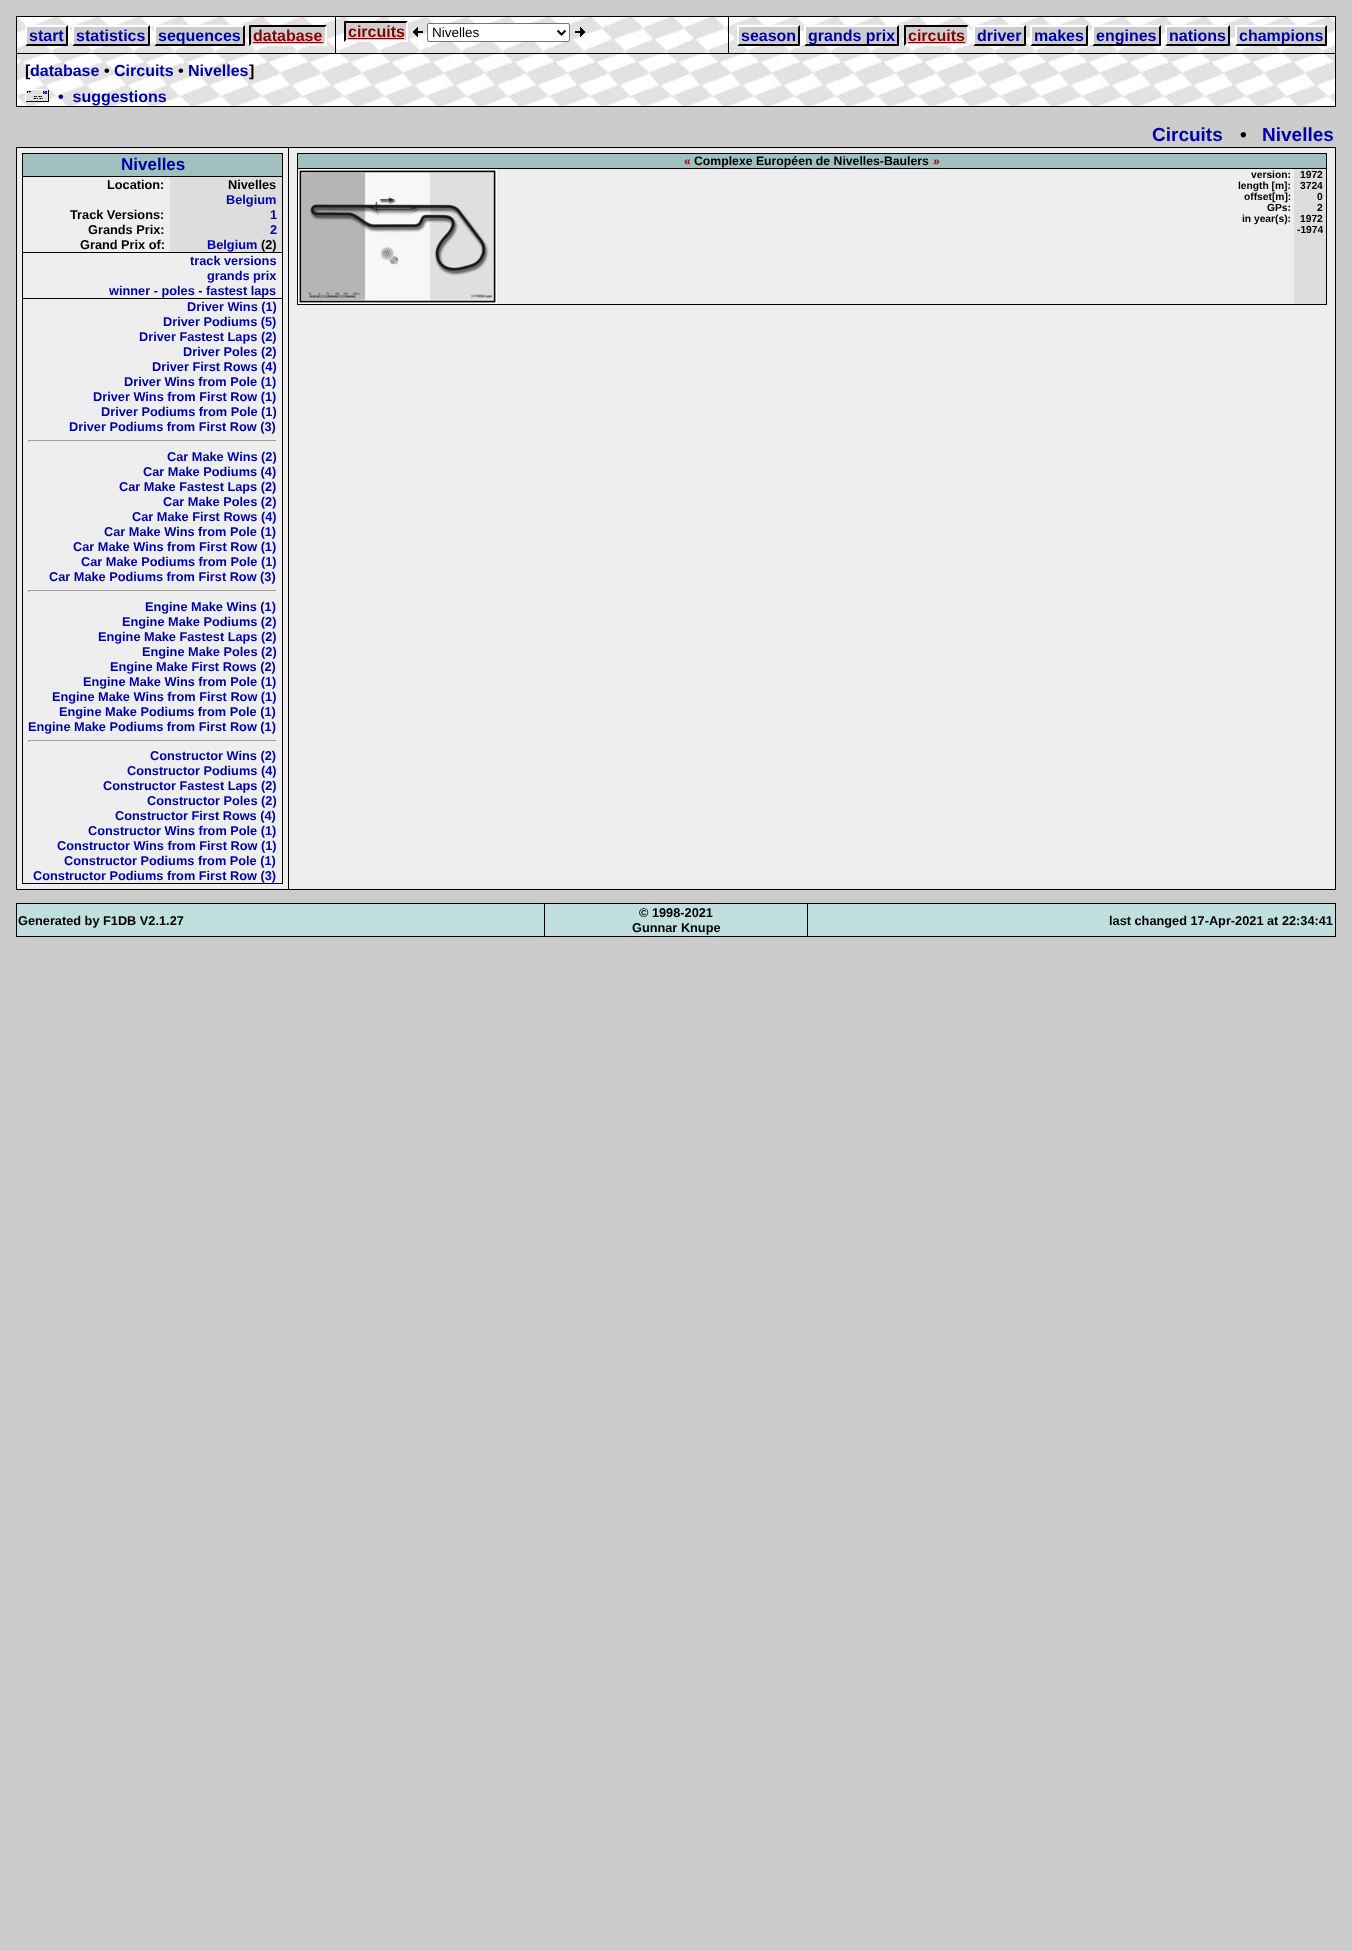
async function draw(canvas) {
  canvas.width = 1352
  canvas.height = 1951
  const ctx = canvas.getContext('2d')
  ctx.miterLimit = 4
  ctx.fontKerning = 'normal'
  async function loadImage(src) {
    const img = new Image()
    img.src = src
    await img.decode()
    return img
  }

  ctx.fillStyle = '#ccc'
  ctx.fillRect(0, 0, 1352, 1951)
  ctx.drawImage(await loadImage('image0.png'), 17, 17, 1318, 89)
  ctx.fillStyle = '#000'
  ctx.fillRect(16, 16, 1320, 1)
  ctx.fillRect(1335, 16, 1, 91)
  ctx.fillRect(16, 106, 1320, 1)
  ctx.fillRect(16, 16, 1, 91)
  ctx.fillRect(728, 53, 608, 1)
  ctx.fillRect(728, 16, 1, 38)
  ctx.fillRect(335, 53, 394, 1)
  ctx.fillRect(335, 16, 1, 38)
  ctx.fillRect(16, 53, 320, 1)
  ctx.fillStyle = '#ccc'
  ctx.fillRect(25, 25, 43, 21)
  ctx.font = 'bold 16px Liberation Sans'
  ctx.fillStyle = '#00a'
  ctx.fillText('start', 29, 41)
  ctx.fillStyle = '#fff'
  ctx.beginPath()
  ctx.moveTo(25, 25)
  ctx.lineTo(68, 25)
  ctx.lineTo(66, 27)
  ctx.lineTo(27, 27)
  ctx.closePath()
  ctx.fill()
  ctx.fillStyle = '#000'
  ctx.beginPath()
  ctx.moveTo(68, 25)
  ctx.lineTo(68, 46)
  ctx.lineTo(66, 44)
  ctx.lineTo(66, 27)
  ctx.closePath()
  ctx.fill()
  ctx.beginPath()
  ctx.moveTo(68, 46)
  ctx.lineTo(25, 46)
  ctx.lineTo(27, 44)
  ctx.lineTo(66, 44)
  ctx.closePath()
  ctx.fill()
  ctx.fillStyle = '#fff'
  ctx.beginPath()
  ctx.moveTo(25, 46)
  ctx.lineTo(25, 25)
  ctx.lineTo(27, 27)
  ctx.lineTo(27, 44)
  ctx.closePath()
  ctx.fill()
  ctx.fillStyle = '#ccc'
  ctx.fillRect(72, 25, 78, 21)
  ctx.fillStyle = '#00a'
  ctx.fillText('statistics', 76, 41)
  ctx.fillStyle = '#fff'
  ctx.beginPath()
  ctx.moveTo(72, 25)
  ctx.lineTo(150, 25)
  ctx.lineTo(148, 27)
  ctx.lineTo(74, 27)
  ctx.closePath()
  ctx.fill()
  ctx.fillStyle = '#000'
  ctx.beginPath()
  ctx.moveTo(150, 25)
  ctx.lineTo(150, 46)
  ctx.lineTo(148, 44)
  ctx.lineTo(148, 27)
  ctx.closePath()
  ctx.fill()
  ctx.beginPath()
  ctx.moveTo(150, 46)
  ctx.lineTo(72, 46)
  ctx.lineTo(74, 44)
  ctx.lineTo(148, 44)
  ctx.closePath()
  ctx.fill()
  ctx.fillStyle = '#fff'
  ctx.beginPath()
  ctx.moveTo(72, 46)
  ctx.lineTo(72, 25)
  ctx.lineTo(74, 27)
  ctx.lineTo(74, 44)
  ctx.closePath()
  ctx.fill()
  ctx.fillStyle = '#ccc'
  ctx.fillRect(154, 25, 91, 21)
  ctx.fillStyle = '#fff'
  ctx.beginPath()
  ctx.moveTo(154, 25)
  ctx.lineTo(245, 25)
  ctx.lineTo(243, 27)
  ctx.lineTo(156, 27)
  ctx.closePath()
  ctx.fill()
  ctx.fillStyle = '#000'
  ctx.beginPath()
  ctx.moveTo(245, 25)
  ctx.lineTo(245, 46)
  ctx.lineTo(243, 44)
  ctx.lineTo(243, 27)
  ctx.closePath()
  ctx.fill()
  ctx.beginPath()
  ctx.moveTo(245, 46)
  ctx.lineTo(154, 46)
  ctx.lineTo(156, 44)
  ctx.lineTo(243, 44)
  ctx.closePath()
  ctx.fill()
  ctx.fillStyle = '#00a'
  ctx.fillText('sequences', 158, 41)
  ctx.fillStyle = '#fff'
  ctx.beginPath()
  ctx.moveTo(154, 46)
  ctx.lineTo(154, 25)
  ctx.lineTo(156, 27)
  ctx.lineTo(156, 44)
  ctx.closePath()
  ctx.fill()
  ctx.fillStyle = '#d0cfcf'
  ctx.fillRect(249, 25, 78, 21)
  ctx.fillStyle = '#800'
  ctx.fillText('database', 253, 41)
  ctx.fillStyle = '#000'
  ctx.beginPath()
  ctx.moveTo(249, 25)
  ctx.lineTo(327, 25)
  ctx.lineTo(325, 27)
  ctx.lineTo(251, 27)
  ctx.closePath()
  ctx.fill()
  ctx.fillStyle = '#fff'
  ctx.beginPath()
  ctx.moveTo(327, 25)
  ctx.lineTo(327, 46)
  ctx.lineTo(325, 44)
  ctx.lineTo(325, 27)
  ctx.closePath()
  ctx.fill()
  ctx.beginPath()
  ctx.moveTo(327, 46)
  ctx.lineTo(249, 46)
  ctx.lineTo(251, 44)
  ctx.lineTo(325, 44)
  ctx.closePath()
  ctx.fill()
  ctx.fillStyle = '#000'
  ctx.beginPath()
  ctx.moveTo(249, 46)
  ctx.lineTo(249, 25)
  ctx.lineTo(251, 27)
  ctx.lineTo(251, 44)
  ctx.closePath()
  ctx.fill()
  ctx.fillStyle = '#800'
  ctx.fillRect(253, 42, 70, 1)
  ctx.fillStyle = '#d0cfcf'
  ctx.fillRect(344, 21, 64, 21)
  ctx.fillStyle = '#800'
  ctx.fillText('circuits', 348, 37)
  ctx.fillStyle = '#000'
  ctx.beginPath()
  ctx.moveTo(344, 21)
  ctx.lineTo(408, 21)
  ctx.lineTo(406, 23)
  ctx.lineTo(346, 23)
  ctx.closePath()
  ctx.fill()
  ctx.fillStyle = '#fff'
  ctx.beginPath()
  ctx.moveTo(408, 21)
  ctx.lineTo(408, 42)
  ctx.lineTo(406, 40)
  ctx.lineTo(406, 23)
  ctx.closePath()
  ctx.fill()
  ctx.beginPath()
  ctx.moveTo(408, 42)
  ctx.lineTo(344, 42)
  ctx.lineTo(346, 40)
  ctx.lineTo(406, 40)
  ctx.closePath()
  ctx.fill()
  ctx.fillStyle = '#000'
  ctx.beginPath()
  ctx.moveTo(344, 42)
  ctx.lineTo(344, 21)
  ctx.lineTo(346, 23)
  ctx.lineTo(346, 40)
  ctx.closePath()
  ctx.fill()
  ctx.fillStyle = '#800'
  ctx.fillRect(348, 38, 56, 1)
  ctx.drawImage(await loadImage('image1.png'), 413, 27, 10, 10)
  ctx.fillStyle = '#fff'
  ctx.beginPath()
  ctx.roundRect(427.5, 23.5, 142, 18, 1.5)
  ctx.fill()
  ctx.strokeStyle = '#767676'
  ctx.stroke()
  ctx.beginPath()
  ctx.moveTo(557.5, 30.5)
  ctx.lineTo(561.5, 34.5)
  ctx.lineTo(565.5, 30.5)
  ctx.strokeStyle = '#000'
  ctx.lineWidth = 2
  ctx.stroke()
  ctx.font = '13.5px Liberation Sans'
  ctx.fillStyle = '#000'
  ctx.fillText('Nivelles', 432, 37)
  ctx.drawImage(await loadImage('image2.png'), 575, 27, 10, 10)
  ctx.fillStyle = '#ccc'
  ctx.fillRect(737, 25, 63, 21)
  ctx.font = 'bold 16px Liberation Sans'
  ctx.fillStyle = '#00a'
  ctx.fillText('season', 741, 41)
  ctx.fillStyle = '#fff'
  ctx.beginPath()
  ctx.moveTo(737, 25)
  ctx.lineTo(800, 25)
  ctx.lineTo(798, 27)
  ctx.lineTo(739, 27)
  ctx.closePath()
  ctx.fill()
  ctx.fillStyle = '#000'
  ctx.beginPath()
  ctx.moveTo(800, 25)
  ctx.lineTo(800, 46)
  ctx.lineTo(798, 44)
  ctx.lineTo(798, 27)
  ctx.closePath()
  ctx.fill()
  ctx.beginPath()
  ctx.moveTo(800, 46)
  ctx.lineTo(737, 46)
  ctx.lineTo(739, 44)
  ctx.lineTo(798, 44)
  ctx.closePath()
  ctx.fill()
  ctx.fillStyle = '#fff'
  ctx.beginPath()
  ctx.moveTo(737, 46)
  ctx.lineTo(737, 25)
  ctx.lineTo(739, 27)
  ctx.lineTo(739, 44)
  ctx.closePath()
  ctx.fill()
  ctx.fillStyle = '#ccc'
  ctx.fillRect(804, 25, 95, 21)
  ctx.fillStyle = '#fff'
  ctx.beginPath()
  ctx.moveTo(804, 25)
  ctx.lineTo(899, 25)
  ctx.lineTo(897, 27)
  ctx.lineTo(806, 27)
  ctx.closePath()
  ctx.fill()
  ctx.fillStyle = '#000'
  ctx.beginPath()
  ctx.moveTo(899, 25)
  ctx.lineTo(899, 46)
  ctx.lineTo(897, 44)
  ctx.lineTo(897, 27)
  ctx.closePath()
  ctx.fill()
  ctx.beginPath()
  ctx.moveTo(899, 46)
  ctx.lineTo(804, 46)
  ctx.lineTo(806, 44)
  ctx.lineTo(897, 44)
  ctx.closePath()
  ctx.fill()
  ctx.fillStyle = '#00a'
  ctx.fillText('grands prix', 808, 41)
  ctx.fillStyle = '#fff'
  ctx.beginPath()
  ctx.moveTo(804, 46)
  ctx.lineTo(804, 25)
  ctx.lineTo(806, 27)
  ctx.lineTo(806, 44)
  ctx.closePath()
  ctx.fill()
  ctx.fillStyle = '#d0cfcf'
  ctx.fillRect(904, 25, 65, 21)
  ctx.fillStyle = '#800'
  ctx.fillText('circuits', 908, 41)
  ctx.fillStyle = '#000'
  ctx.beginPath()
  ctx.moveTo(904, 25)
  ctx.lineTo(969, 25)
  ctx.lineTo(967, 27)
  ctx.lineTo(906, 27)
  ctx.closePath()
  ctx.fill()
  ctx.fillStyle = '#fff'
  ctx.beginPath()
  ctx.moveTo(969, 25)
  ctx.lineTo(969, 46)
  ctx.lineTo(967, 44)
  ctx.lineTo(967, 27)
  ctx.closePath()
  ctx.fill()
  ctx.beginPath()
  ctx.moveTo(969, 46)
  ctx.lineTo(904, 46)
  ctx.lineTo(906, 44)
  ctx.lineTo(967, 44)
  ctx.closePath()
  ctx.fill()
  ctx.fillStyle = '#000'
  ctx.beginPath()
  ctx.moveTo(904, 46)
  ctx.lineTo(904, 25)
  ctx.lineTo(906, 27)
  ctx.lineTo(906, 44)
  ctx.closePath()
  ctx.fill()
  ctx.fillStyle = '#800'
  ctx.fillRect(908, 42, 57, 1)
  ctx.fillStyle = '#ccc'
  ctx.fillRect(973, 25, 53, 21)
  ctx.fillStyle = '#00a'
  ctx.fillText('driver', 977, 41)
  ctx.fillStyle = '#fff'
  ctx.beginPath()
  ctx.moveTo(973, 25)
  ctx.lineTo(1026, 25)
  ctx.lineTo(1024, 27)
  ctx.lineTo(975, 27)
  ctx.closePath()
  ctx.fill()
  ctx.fillStyle = '#000'
  ctx.beginPath()
  ctx.moveTo(1026, 25)
  ctx.lineTo(1026, 46)
  ctx.lineTo(1024, 44)
  ctx.lineTo(1024, 27)
  ctx.closePath()
  ctx.fill()
  ctx.beginPath()
  ctx.moveTo(1026, 46)
  ctx.lineTo(973, 46)
  ctx.lineTo(975, 44)
  ctx.lineTo(1024, 44)
  ctx.closePath()
  ctx.fill()
  ctx.fillStyle = '#fff'
  ctx.beginPath()
  ctx.moveTo(973, 46)
  ctx.lineTo(973, 25)
  ctx.lineTo(975, 27)
  ctx.lineTo(975, 44)
  ctx.closePath()
  ctx.fill()
  ctx.fillStyle = '#ccc'
  ctx.fillRect(1030, 25, 58, 21)
  ctx.fillStyle = '#00a'
  ctx.fillText('makes', 1034, 41)
  ctx.fillStyle = '#fff'
  ctx.beginPath()
  ctx.moveTo(1030, 25)
  ctx.lineTo(1088, 25)
  ctx.lineTo(1086, 27)
  ctx.lineTo(1032, 27)
  ctx.closePath()
  ctx.fill()
  ctx.fillStyle = '#000'
  ctx.beginPath()
  ctx.moveTo(1088, 25)
  ctx.lineTo(1088, 46)
  ctx.lineTo(1086, 44)
  ctx.lineTo(1086, 27)
  ctx.closePath()
  ctx.fill()
  ctx.beginPath()
  ctx.moveTo(1088, 46)
  ctx.lineTo(1030, 46)
  ctx.lineTo(1032, 44)
  ctx.lineTo(1086, 44)
  ctx.closePath()
  ctx.fill()
  ctx.fillStyle = '#fff'
  ctx.beginPath()
  ctx.moveTo(1030, 46)
  ctx.lineTo(1030, 25)
  ctx.lineTo(1032, 27)
  ctx.lineTo(1032, 44)
  ctx.closePath()
  ctx.fill()
  ctx.fillStyle = '#ccc'
  ctx.fillRect(1092, 25, 69, 21)
  ctx.fillStyle = '#fff'
  ctx.beginPath()
  ctx.moveTo(1092, 25)
  ctx.lineTo(1161, 25)
  ctx.lineTo(1159, 27)
  ctx.lineTo(1094, 27)
  ctx.closePath()
  ctx.fill()
  ctx.fillStyle = '#000'
  ctx.beginPath()
  ctx.moveTo(1161, 25)
  ctx.lineTo(1161, 46)
  ctx.lineTo(1159, 44)
  ctx.lineTo(1159, 27)
  ctx.closePath()
  ctx.fill()
  ctx.beginPath()
  ctx.moveTo(1161, 46)
  ctx.lineTo(1092, 46)
  ctx.lineTo(1094, 44)
  ctx.lineTo(1159, 44)
  ctx.closePath()
  ctx.fill()
  ctx.fillStyle = '#00a'
  ctx.fillText('engines', 1096, 41)
  ctx.fillStyle = '#fff'
  ctx.beginPath()
  ctx.moveTo(1092, 46)
  ctx.lineTo(1092, 25)
  ctx.lineTo(1094, 27)
  ctx.lineTo(1094, 44)
  ctx.closePath()
  ctx.fill()
  ctx.fillStyle = '#ccc'
  ctx.fillRect(1165, 25, 65, 21)
  ctx.fillStyle = '#00a'
  ctx.fillText('nations', 1169, 41)
  ctx.fillStyle = '#fff'
  ctx.beginPath()
  ctx.moveTo(1165, 25)
  ctx.lineTo(1230, 25)
  ctx.lineTo(1228, 27)
  ctx.lineTo(1167, 27)
  ctx.closePath()
  ctx.fill()
  ctx.fillStyle = '#000'
  ctx.beginPath()
  ctx.moveTo(1230, 25)
  ctx.lineTo(1230, 46)
  ctx.lineTo(1228, 44)
  ctx.lineTo(1228, 27)
  ctx.closePath()
  ctx.fill()
  ctx.beginPath()
  ctx.moveTo(1230, 46)
  ctx.lineTo(1165, 46)
  ctx.lineTo(1167, 44)
  ctx.lineTo(1228, 44)
  ctx.closePath()
  ctx.fill()
  ctx.fillStyle = '#fff'
  ctx.beginPath()
  ctx.moveTo(1165, 46)
  ctx.lineTo(1165, 25)
  ctx.lineTo(1167, 27)
  ctx.lineTo(1167, 44)
  ctx.closePath()
  ctx.fill()
  ctx.fillStyle = '#ccc'
  ctx.fillRect(1235, 25, 92, 21)
  ctx.fillStyle = '#fff'
  ctx.beginPath()
  ctx.moveTo(1235, 25)
  ctx.lineTo(1327, 25)
  ctx.lineTo(1325, 27)
  ctx.lineTo(1237, 27)
  ctx.closePath()
  ctx.fill()
  ctx.fillStyle = '#000'
  ctx.beginPath()
  ctx.moveTo(1327, 25)
  ctx.lineTo(1327, 46)
  ctx.lineTo(1325, 44)
  ctx.lineTo(1325, 27)
  ctx.closePath()
  ctx.fill()
  ctx.beginPath()
  ctx.moveTo(1327, 46)
  ctx.lineTo(1235, 46)
  ctx.lineTo(1237, 44)
  ctx.lineTo(1325, 44)
  ctx.closePath()
  ctx.fill()
  ctx.fillStyle = '#00a'
  ctx.fillText('champions', 1239, 41)
  ctx.fillStyle = '#fff'
  ctx.beginPath()
  ctx.moveTo(1235, 46)
  ctx.lineTo(1235, 25)
  ctx.lineTo(1237, 27)
  ctx.lineTo(1237, 44)
  ctx.closePath()
  ctx.fill()
  ctx.fillStyle = '#000'
  ctx.fillText('[', 25, 76)
  ctx.fillStyle = '#00a'
  ctx.fillText('database', 30, 76)
  ctx.fillStyle = '#000'
  ctx.fillText('•', 104, 76)
  ctx.fillStyle = '#00a'
  ctx.fillText('Circuits', 114, 76)
  ctx.fillStyle = '#000'
  ctx.fillText('•', 178, 76)
  ctx.fillStyle = '#00a'
  ctx.fillText('Nivelles', 188, 76)
  ctx.fillStyle = '#000'
  ctx.fillText(']', 249, 76)
  ctx.drawImage(await loadImage('image3.png'), 25, 89, 24, 13)
  ctx.fillStyle = '#00a'
  ctx.fillText('•  suggestions', 58, 102)
  ctx.font = 'bold 19px Liberation Sans'
  ctx.fillText('Circuits', 1152, 141)
  ctx.fillStyle = '#000'
  ctx.fillText('•', 1240, 141)
  ctx.fillStyle = '#00a'
  ctx.fillText('Nivelles', 1262, 141)
  ctx.fillStyle = '#eee'
  ctx.fillRect(17, 148, 1318, 741)
  ctx.fillStyle = '#000'
  ctx.fillRect(288, 147, 1048, 1)
  ctx.fillRect(1335, 147, 1, 743)
  ctx.fillRect(288, 889, 1048, 1)
  ctx.fillRect(288, 147, 1, 743)
  ctx.fillRect(16, 147, 273, 1)
  ctx.fillRect(16, 889, 273, 1)
  ctx.fillRect(16, 147, 1, 743)
  ctx.fillRect(22, 153, 261, 1)
  ctx.fillRect(282, 153, 1, 731)
  ctx.fillRect(22, 883, 261, 1)
  ctx.fillRect(22, 153, 1, 731)
  ctx.fillStyle = '#a0bfbf'
  ctx.fillRect(23, 154, 259, 22)
  ctx.fillStyle = '#000'
  ctx.fillRect(22, 176, 261, 1)
  ctx.font = 'bold 17px Liberation Sans'
  ctx.fillStyle = '#00a'
  ctx.fillText('Nivelles', 121, 170)
  ctx.font = 'bold 12.75px Liberation Sans'
  ctx.fillStyle = '#000'
  ctx.fillText('Location:', 107, 189)
  ctx.fillText('Track Versions:', 70, 219)
  ctx.fillText('Grands Prix:', 88, 234)
  ctx.fillText('Grand Prix of:', 80, 249)
  ctx.fillStyle = '#ddd'
  ctx.fillRect(170, 177, 112, 75)
  ctx.fillStyle = '#000'
  ctx.fillText('Nivelles', 228, 189)
  ctx.fillStyle = '#00a'
  ctx.fillText('Belgium', 226, 204)
  ctx.fillText('1', 270, 219)
  ctx.fillText('2', 270, 234)
  ctx.fillText('Belgium', 207, 249)
  ctx.fillStyle = '#000'
  ctx.fillText('(2)', 261, 249)
  ctx.fillRect(22, 252, 261, 1)
  ctx.fillStyle = '#00a'
  ctx.fillText('track versions', 190, 265)
  ctx.fillText('grands prix', 207, 280)
  ctx.fillText('winner - poles - fastest laps', 109, 295)
  ctx.fillStyle = '#000'
  ctx.fillRect(22, 298, 261, 1)
  ctx.fillStyle = '#00a'
  ctx.fillText('Driver Wins (1)', 187, 311)
  ctx.fillText('Driver Podiums (5)', 163, 326)
  ctx.fillText('Driver Fastest Laps (2)', 139, 341)
  ctx.fillText('Driver Poles (2)', 183, 356)
  ctx.fillText('Driver First Rows (4)', 152, 371)
  ctx.fillText('Driver Wins from Pole (1)', 124, 386)
  ctx.fillText('Driver Wins from First Row (1)', 93, 401)
  ctx.fillText('Driver Podiums from Pole (1)', 101, 416)
  ctx.fillText('Driver Podiums from First Row (3)', 69, 431)
  ctx.fillStyle = '#9f9f9f'
  ctx.fillRect(28, 440, 249, 1)
  ctx.fillStyle = '#eee'
  ctx.fillRect(276, 440, 1, 2)
  ctx.fillStyle = '#9f9f9f'
  ctx.fillRect(28, 440, 1, 2)
  ctx.fillStyle = '#00a'
  ctx.fillText('Car Make Wins (2)', 167, 461)
  ctx.fillText('Car Make Podiums (4)', 143, 476)
  ctx.fillText('Car Make Fastest Laps (2)', 119, 491)
  ctx.fillText('Car Make Poles (2)', 163, 506)
  ctx.fillText('Car Make First Rows (4)', 132, 521)
  ctx.fillText('Car Make Wins from Pole (1)', 104, 536)
  ctx.fillText('Car Make Wins from First Row (1)', 73, 551)
  ctx.fillText('Car Make Podiums from Pole (1)', 81, 566)
  ctx.fillText('Car Make Podiums from First Row (3)', 49, 581)
  ctx.fillStyle = '#9f9f9f'
  ctx.fillRect(28, 590, 249, 1)
  ctx.fillStyle = '#eee'
  ctx.fillRect(276, 590, 1, 2)
  ctx.fillStyle = '#9f9f9f'
  ctx.fillRect(28, 590, 1, 2)
  ctx.fillStyle = '#00a'
  ctx.fillText('Engine Make Wins (1)', 145, 611)
  ctx.fillText('Engine Make Podiums (2)', 122, 626)
  ctx.fillText('Engine Make Fastest Laps (2)', 98, 641)
  ctx.fillText('Engine Make Poles (2)', 142, 656)
  ctx.fillText('Engine Make First Rows (2)', 110, 671)
  ctx.fillText('Engine Make Wins from Pole (1)', 83, 686)
  ctx.fillText('Engine Make Wins from First Row (1)', 52, 701)
  ctx.fillText('Engine Make Podiums from Pole (1)', 59, 716)
  ctx.fillText('Engine Make Podiums from First Row (1)', 28, 731)
  ctx.fillStyle = '#9f9f9f'
  ctx.fillRect(28, 740, 249, 1)
  ctx.fillStyle = '#eee'
  ctx.fillRect(276, 740, 1, 2)
  ctx.fillStyle = '#9f9f9f'
  ctx.fillRect(28, 740, 1, 2)
  ctx.fillStyle = '#00a'
  ctx.fillText('Constructor Wins (2)', 150, 760)
  ctx.fillText('Constructor Podiums (4)', 127, 775)
  ctx.fillText('Constructor Fastest Laps (2)', 103, 790)
  ctx.fillText('Constructor Poles (2)', 147, 805)
  ctx.fillText('Constructor First Rows (4)', 115, 820)
  ctx.fillText('Constructor Wins from Pole (1)', 88, 835)
  ctx.fillText('Constructor Wins from First Row (1)', 57, 850)
  ctx.fillText('Constructor Podiums from Pole (1)', 64, 865)
  ctx.fillText('Constructor Podiums from First Row (3)', 33, 880)
  ctx.fillStyle = '#000'
  ctx.fillRect(297, 153, 1030, 1)
  ctx.fillRect(1326, 153, 1, 152)
  ctx.fillRect(297, 304, 1030, 1)
  ctx.fillRect(297, 153, 1, 152)
  ctx.fillStyle = '#a0bfbf'
  ctx.fillRect(298, 154, 1028, 14)
  ctx.fillStyle = '#000'
  ctx.fillRect(297, 168, 1030, 1)
  ctx.font = 'bold 12.25px Liberation Sans'
  ctx.fillStyle = '#a00'
  ctx.fillText('«', 684, 165)
  ctx.fillStyle = '#000'
  ctx.fillText('Complexe Européen de Nivelles-Baulers', 694, 165)
  ctx.fillStyle = '#a00'
  ctx.fillText('»', 933, 165)
  ctx.drawImage(await loadImage('image4.png'), 298, 169, 199, 135)
  ctx.font = 'bold 10.25px Liberation Sans'
  ctx.fillStyle = '#000'
  ctx.fillText('version:', 1251, 178)
  ctx.fillText('length [m]:', 1238, 189)
  ctx.fillText('offset[m]:', 1244, 200)
  ctx.fillText('GPs:', 1267, 211)
  ctx.fillText('in year(s):', 1242, 222)
  ctx.fillStyle = '#ddd'
  ctx.fillRect(1294, 169, 32, 135)
  ctx.fillStyle = '#000'
  ctx.fillText('1972', 1300, 178)
  ctx.fillText('3724', 1300, 189)
  ctx.fillText('0', 1317, 200)
  ctx.fillText('2', 1317, 211)
  ctx.fillText('1972', 1300, 222)
  ctx.fillText('-1974', 1297, 233)
  ctx.fillStyle = '#c0dfdf'
  ctx.fillRect(17, 904, 1318, 32)
  ctx.fillStyle = '#000'
  ctx.fillRect(807, 903, 529, 1)
  ctx.fillRect(1335, 903, 1, 34)
  ctx.fillRect(807, 936, 529, 1)
  ctx.fillRect(807, 903, 1, 34)
  ctx.fillRect(544, 903, 264, 1)
  ctx.fillRect(544, 936, 264, 1)
  ctx.fillRect(544, 903, 1, 34)
  ctx.fillRect(16, 903, 529, 1)
  ctx.fillRect(16, 936, 529, 1)
  ctx.fillRect(16, 903, 1, 34)
  ctx.font = 'bold 12.75px Liberation Sans'
  ctx.fillText('Generated by F1DB V2.1.27', 18, 925)
  ctx.fillText('© 1998-2021', 639, 917)
  ctx.fillText('Gunnar Knupe', 632, 932)
  ctx.fillText('last changed 17-Apr-2021 at 22:34:41', 1109, 925)
}

draw(document.querySelector('canvas'))
